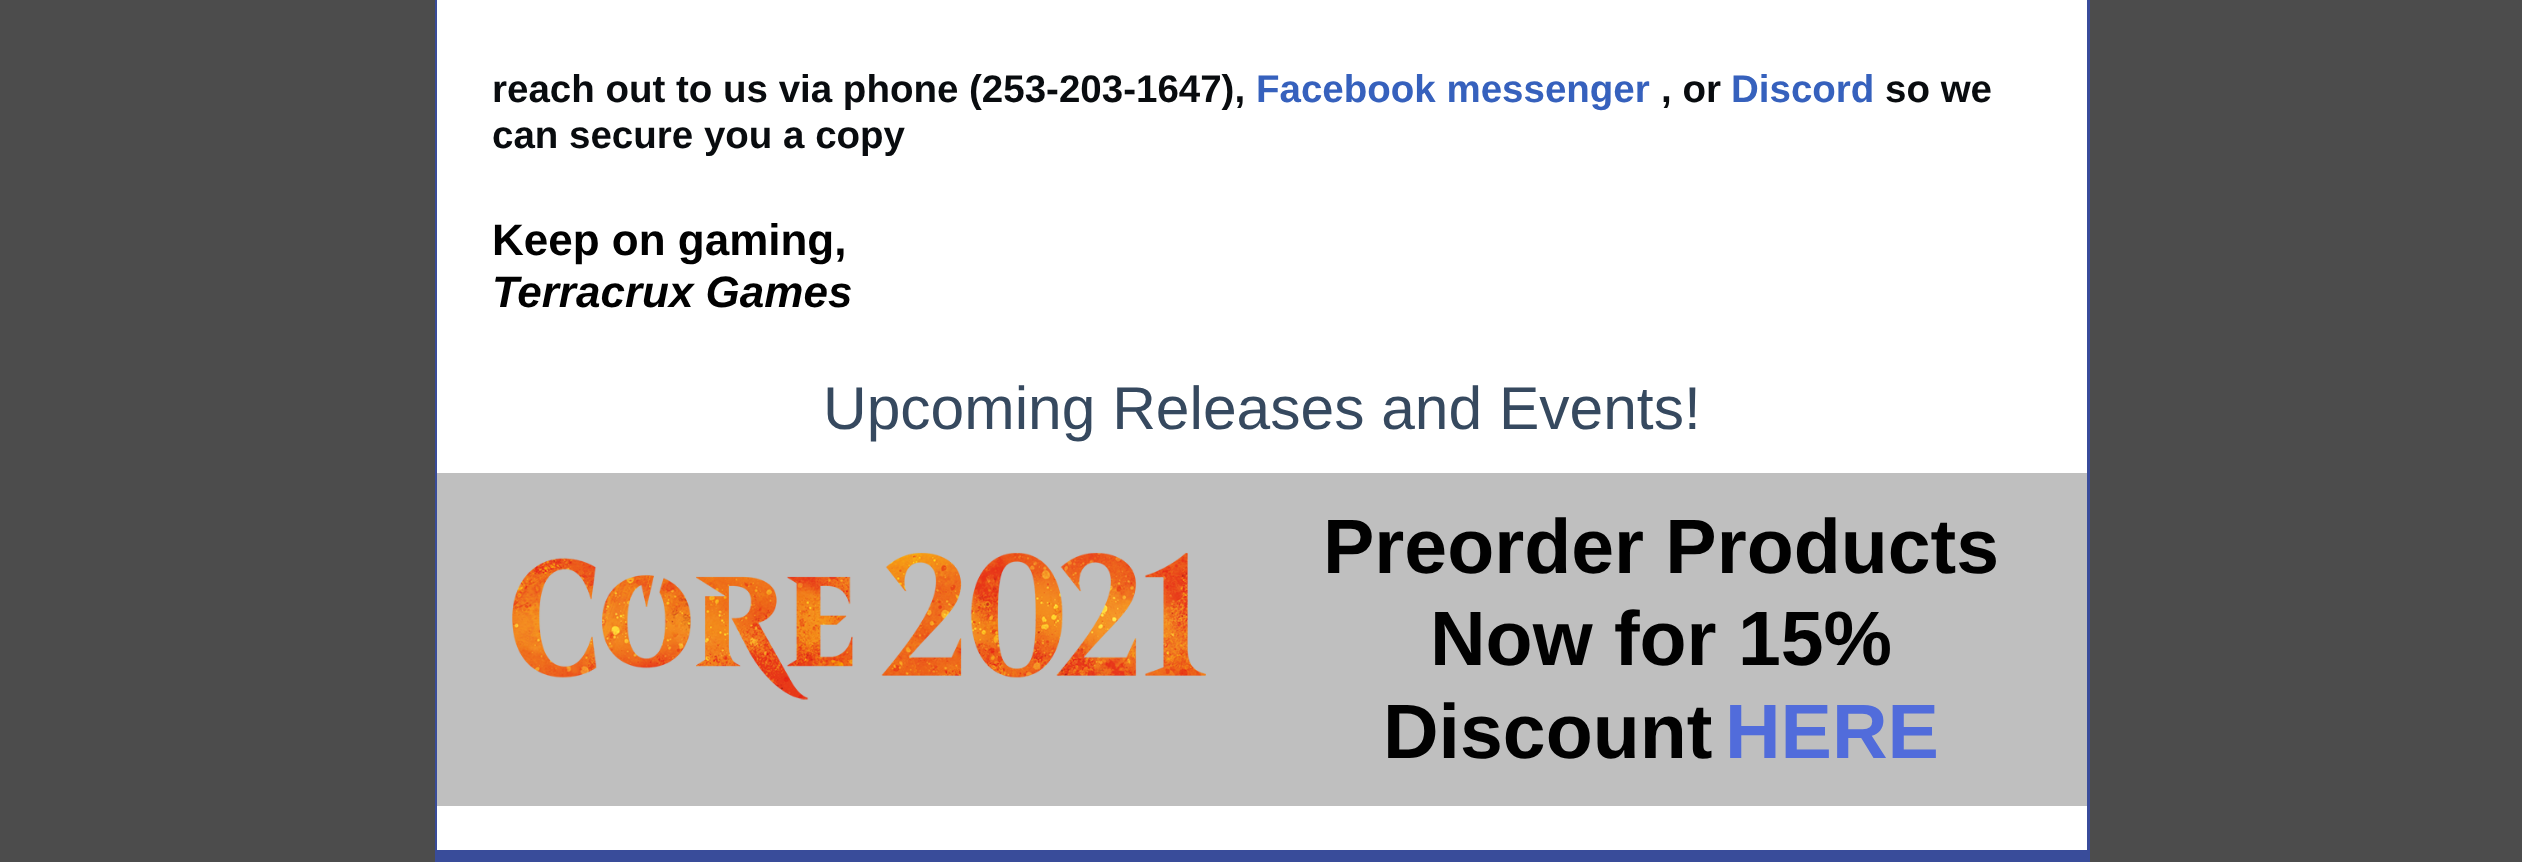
async function draw(canvas) {
  canvas.width = 2522
  canvas.height = 862
  const ctx = canvas.getContext('2d')
  ctx.miterLimit = 4
  ctx.fontKerning = 'normal'
  async function loadImage(src) {
    const img = new Image()
    img.src = src
    await img.decode()
    return img
  }

  ctx.fillStyle = '#4c4c4c'
  ctx.fillRect(0, 0, 2522, 862)
  ctx.fillStyle = '#394c9a'
  ctx.fillRect(435, 0, 1655, 862)
  ctx.fillStyle = '#fff'
  ctx.fillRect(437, 0, 1650, 850)
  ctx.font = 'bold 38.5px Liberation Sans'
  ctx.fillStyle = '#090c0f'
  ctx.fillText('reach out to us via phone (253-203-1647),', 492, 102)
  ctx.fillStyle = '#3661bd'
  ctx.fillText('Facebook messenger', 1256, 102)
  ctx.fillStyle = '#090c0f'
  ctx.fillText(', or', 1661, 102)
  ctx.fillStyle = '#3661bd'
  ctx.fillText('Discord', 1731, 102)
  ctx.fillStyle = '#090c0f'
  ctx.fillText('so we', 1885, 102)
  ctx.fillText('can secure you a copy', 492, 148)
  ctx.font = 'bold 44px Liberation Sans'
  ctx.fillStyle = '#010101'
  ctx.fillText('Keep on gaming,', 492, 255)
  ctx.font = 'italic bold 44px Liberation Sans'
  ctx.fillText('Terracrux Games', 492, 307)
  ctx.font = '60.5px Liberation Sans'
  ctx.fillStyle = '#36495f'
  ctx.fillText('Upcoming Releases and Events!', 823, 429)
  ctx.fillStyle = '#bfbfbf'
  ctx.fillRect(437, 473, 1650, 333)
  ctx.drawImage(await loadImage('image0.png'), 512, 552, 694, 148)
  ctx.font = 'bold 77px Liberation Sans'
  ctx.fillStyle = '#010101'
  ctx.fillText('Preorder Products', 1323, 573)
  ctx.fillText('Now for 15%', 1430, 665)
  ctx.fillText('Discount', 1383, 758)
  ctx.fillStyle = '#516cdb'
  ctx.fillText('HERE', 1725, 758)
}

draw(document.querySelector('canvas'))
